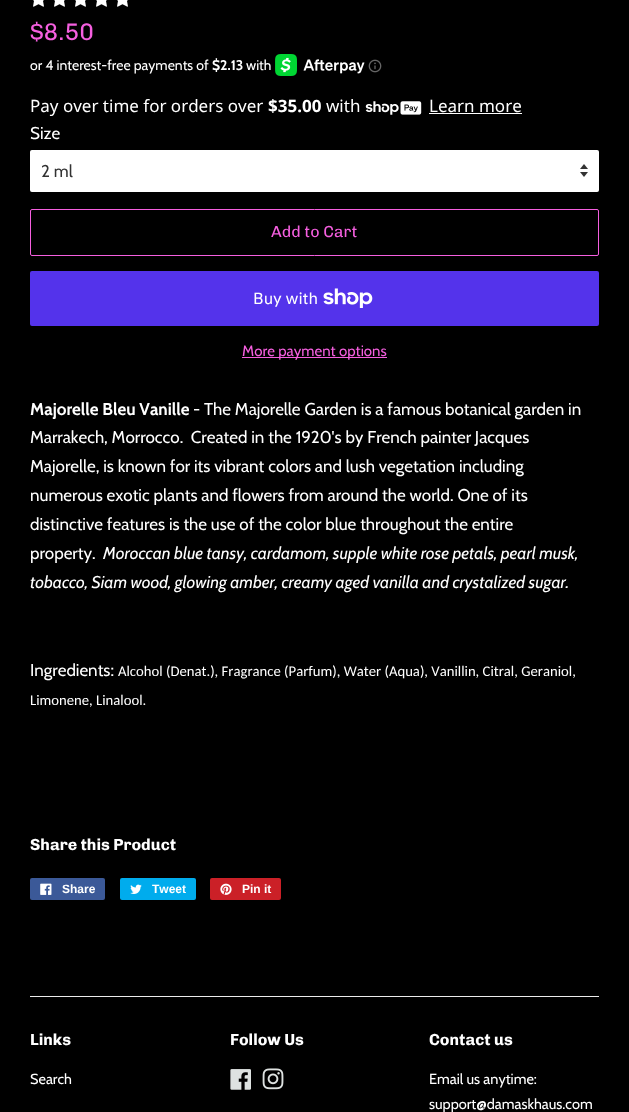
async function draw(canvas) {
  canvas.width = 629
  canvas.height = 1112
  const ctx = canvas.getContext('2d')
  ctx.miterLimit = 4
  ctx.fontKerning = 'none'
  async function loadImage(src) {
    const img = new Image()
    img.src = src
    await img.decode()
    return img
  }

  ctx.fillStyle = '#000'
  ctx.fillRect(0, 0, 629, 1112)
  ctx.drawImage(await loadImage('image0.png'), 33, 0, 11, 7)
  ctx.drawImage(await loadImage('image0.png'), 54, 0, 11, 7)
  ctx.drawImage(await loadImage('image0.png'), 75, 0, 11, 7)
  ctx.drawImage(await loadImage('image0.png'), 96, 0, 11, 7)
  ctx.drawImage(await loadImage('image0.png'), 117, 0, 11, 7)
  ctx.font = '24px Chivo'
  ctx.fillStyle = '#f55fdf'
  ctx.fillText('$8.50', 30, 40)
  ctx.font = '14px Cabin'
  ctx.fillStyle = '#fff'
  ctx.fillText('or 4 interest-free payments of', 30, 70)
  ctx.font = 'bold 14px Cabin'
  ctx.fillText('$2.13', 212, 70)
  ctx.font = '14px Cabin'
  ctx.fillText('with', 246, 70)
  ctx.drawImage(await loadImage('image1.png'), 275, 54, 90, 22)
  ctx.drawImage(await loadImage('image2.png'), 368, 59, 14, 14)
  ctx.font = '17px Noto Sans'
  ctx.fillText('Pay over time for orders over', 30, 112)
  ctx.font = 'bold 17px Noto Sans'
  ctx.fillText('$35.00', 268, 112)
  ctx.font = '17px Noto Sans'
  ctx.fillText('with', 326, 112)
  ctx.drawImage(await loadImage('image3.png'), 365, 101, 57, 14)
  ctx.fillText('Learn more', 429, 112)
  ctx.fillRect(429, 113, 93, 1)
  ctx.font = '17px Cabin'
  ctx.fillText('Size', 30, 139)
  ctx.beginPath()
  ctx.roundRect(30, 150, 569, 42, 2)
  ctx.fill()
  ctx.drawImage(await loadImage('image4.png'), 580, 164, 8, 13)
  ctx.beginPath()
  ctx.roundRect(30.5, 150.5, 568, 41, 1.5)
  ctx.strokeStyle = '#ffffff26'
  ctx.stroke()
  ctx.fillStyle = '#333'
  ctx.fillText('2 ml', 41, 177)
  ctx.beginPath()
  ctx.roundRect(30.5, 209.5, 568, 46, 1.5)
  ctx.strokeStyle = '#f55fdf'
  ctx.stroke()
  ctx.font = '16px Chivo'
  ctx.fillStyle = '#f55fdf'
  ctx.fillText('Add to Cart', 271, 237)
  ctx.fillStyle = '#5433eb'
  ctx.beginPath()
  ctx.roundRect(30, 271, 569, 55, 2)
  ctx.fill()
  ctx.font = '16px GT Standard'
  ctx.fillStyle = '#fff'
  ctx.fillText('Buy with', 253, 304)
  ctx.drawImage(await loadImage('image5.png'), 323, 288, 50, 20)
  ctx.fillStyle = '#f55fdf'
  ctx.fillRect(242, 357, 145, 1)
  ctx.font = '15px Cabin'
  ctx.fillText('More payment options', 242, 356)
  ctx.font = 'bold 17px Cabin'
  ctx.fillStyle = '#fff'
  ctx.fillText('Majorelle Bleu Vanille', 30, 415)
  ctx.font = '17px Cabin'
  ctx.fillText('- The Majorelle Garden is a famous botanical garden in', 193, 415)
  ctx.fillText('Marrakech, Morrocco.  Created in the 1920\'s by French painter Jacques', 30, 443)
  ctx.fillText('Majorelle, is known for its vibrant colors and lush vegetation including', 30, 472)
  ctx.fillText('numerous exotic plants and flowers from around the world. One of its', 30, 501)
  ctx.fillText('distinctive features is the use of the color blue throughout the entire', 30, 530)
  ctx.fillText('property.', 30, 559)
  ctx.font = 'italic 17px Cabin'
  ctx.fillText('Moroccan blue tansy, cardamom, supple white rose petals, pearl musk,', 103, 559)
  ctx.fillText('tobacco, Siam wood, glowing amber, creamy aged vanilla and crystalized sugar.', 30, 588)
  ctx.font = '17px Cabin'
  ctx.fillText('Ingredients:', 30, 676)
  ctx.font = '14.7px Carlito'
  ctx.fillText('Alcohol (Denat.), Fragrance (Parfum), Water (Aqua), Vanillin, Citral, Geraniol,', 118, 676)
  ctx.fillText('Limonene, Linalool.', 30, 705)
  ctx.font = 'bold 16px Chivo'
  ctx.fillText('Share this Product', 30, 850)
  ctx.fillStyle = '#3b5998'
  ctx.beginPath()
  ctx.roundRect(30, 878, 75, 22, 2)
  ctx.fill()
  ctx.drawImage(await loadImage('image6.png'), 40, 883, 12, 12)
  ctx.font = 'bold 12px Liberation Sans'
  ctx.fillStyle = '#fff'
  ctx.fillText('Share', 62, 893)
  ctx.fillStyle = '#00aced'
  ctx.beginPath()
  ctx.roundRect(120, 878, 76, 22, 2)
  ctx.fill()
  ctx.drawImage(await loadImage('image7.png'), 130, 884, 12, 10)
  ctx.fillStyle = '#fff'
  ctx.fillText('Tweet', 152, 893)
  ctx.fillStyle = '#cb2027'
  ctx.beginPath()
  ctx.roundRect(210, 878, 71, 22, 2)
  ctx.fill()
  ctx.drawImage(await loadImage('image8.png'), 220, 883, 12, 12)
  ctx.fillStyle = '#fff'
  ctx.fillText('Pin it', 242, 893)
  ctx.fillStyle = '#ebebeb'
  ctx.fillRect(30, 996, 569, 1)
  ctx.font = 'bold 16px Chivo'
  ctx.fillStyle = '#fff'
  ctx.fillText('Links', 30, 1045)
  ctx.font = '14.5px Cabin'
  ctx.fillText('Search', 30, 1084)
  ctx.font = 'bold 16px Chivo'
  ctx.fillText('Follow Us', 230, 1045)
  ctx.drawImage(await loadImage('image9.png'), 230, 1069, 21, 21)
  ctx.drawImage(await loadImage('image10.png'), 262, 1068, 22, 22)
  ctx.fillText('Contact us', 429, 1045)
  ctx.font = '14.5px Cabin'
  ctx.fillText('Email us anytime:', 429, 1084)
  ctx.fillText('support@damaskhaus.com', 429, 1109)
}

draw(document.querySelector('canvas'))
